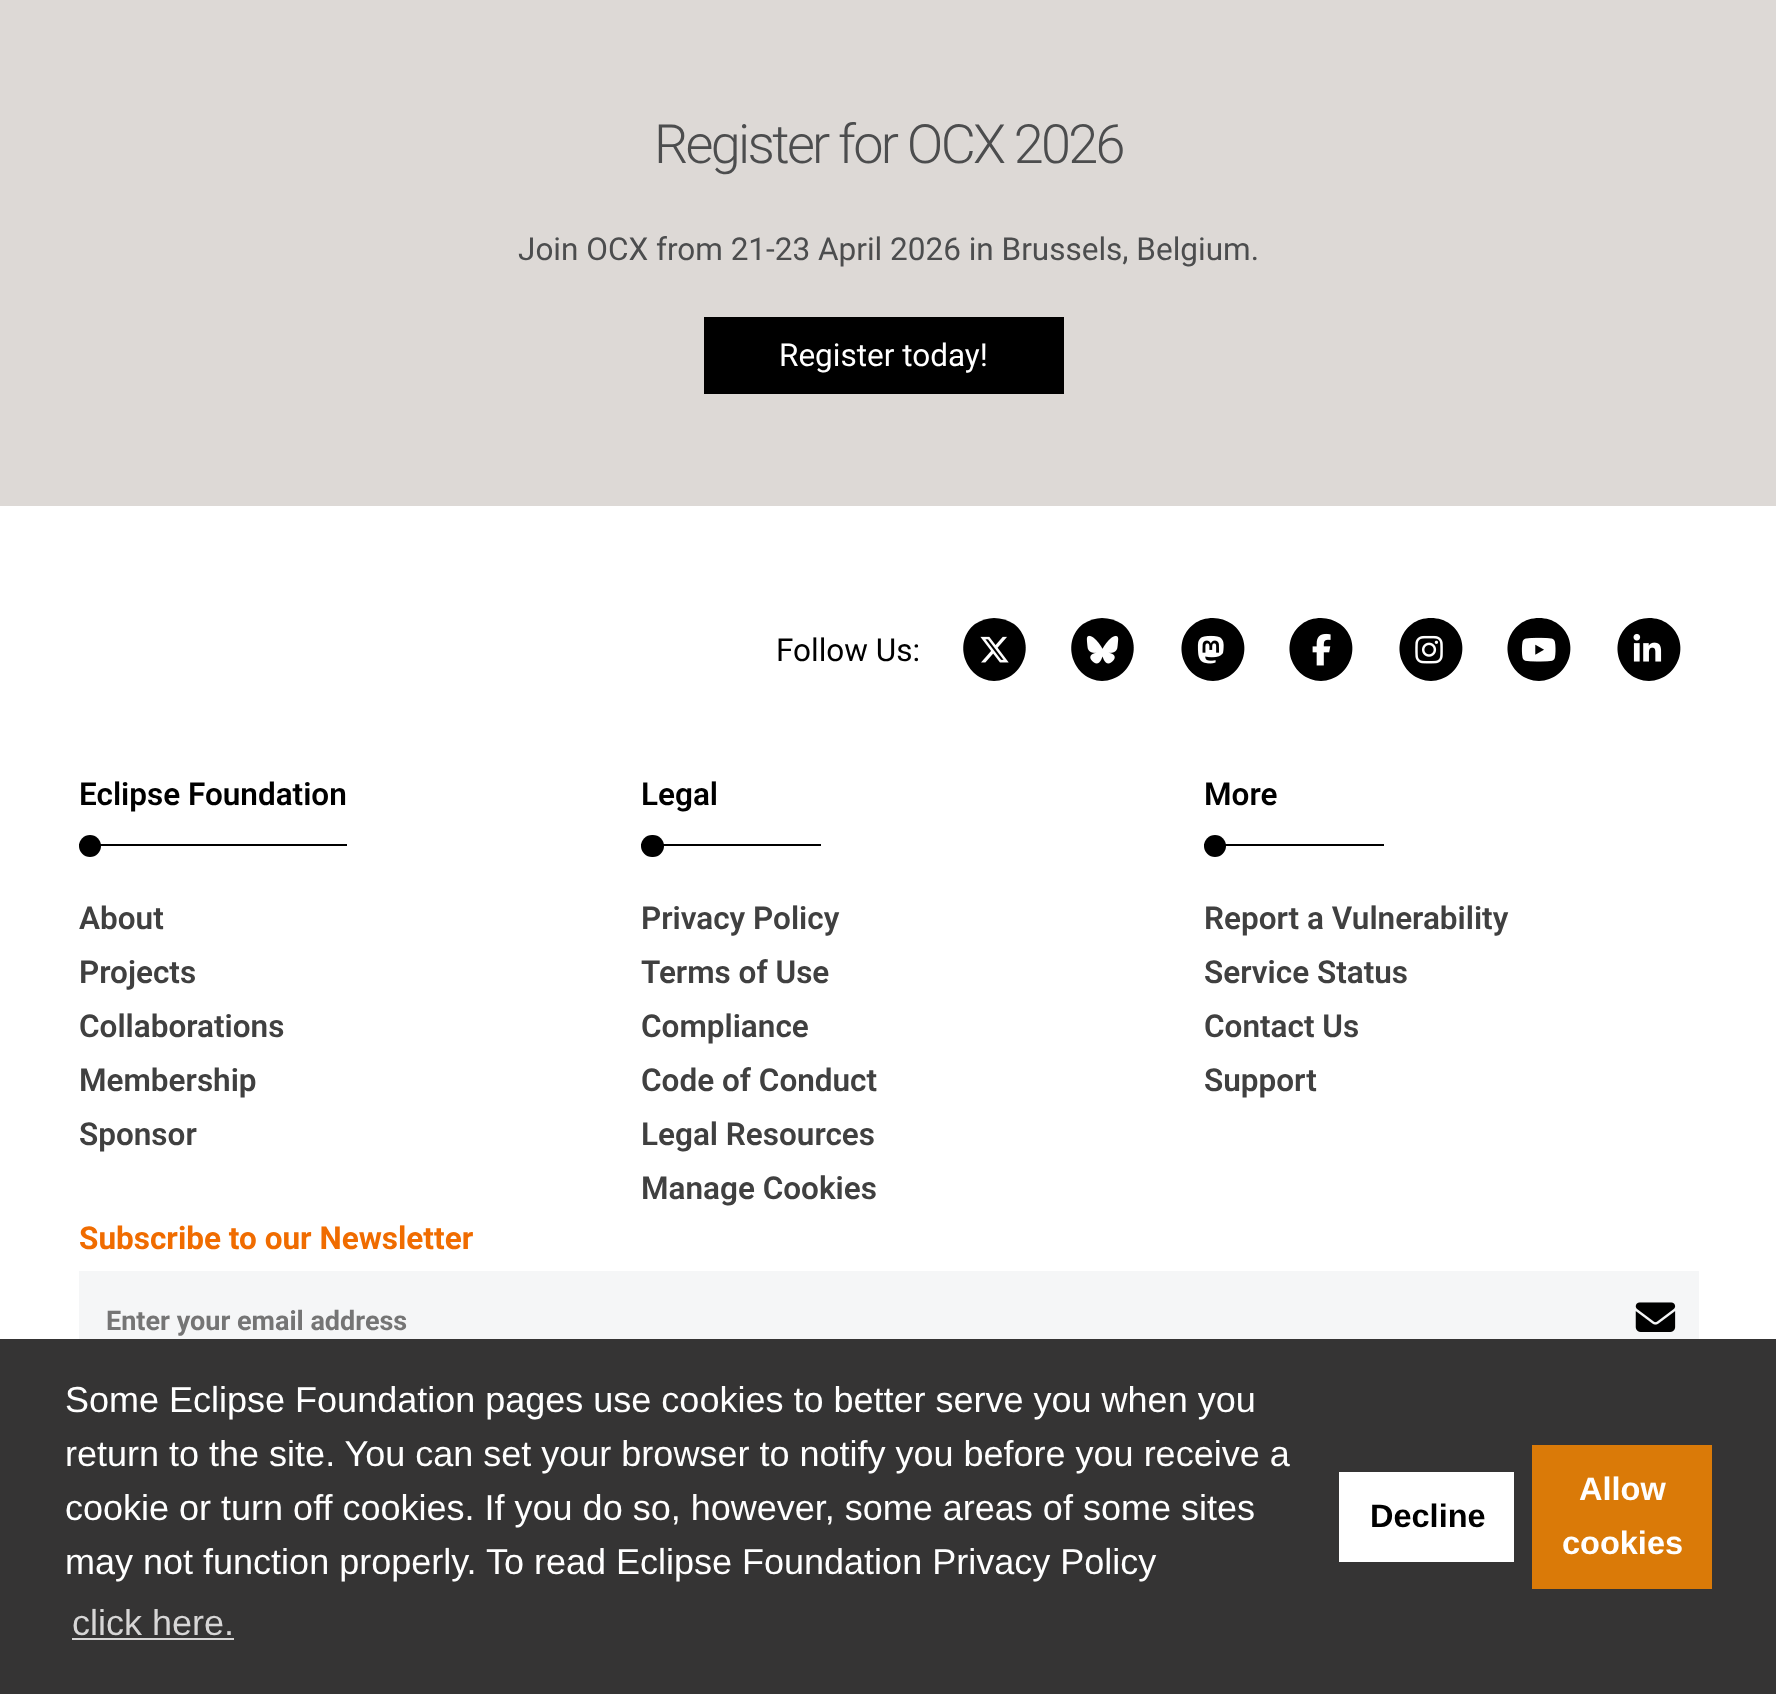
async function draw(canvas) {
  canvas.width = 1776
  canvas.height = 1694
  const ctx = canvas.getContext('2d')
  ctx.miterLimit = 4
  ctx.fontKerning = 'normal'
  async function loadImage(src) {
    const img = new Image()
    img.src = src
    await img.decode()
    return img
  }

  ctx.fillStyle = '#fff'
  ctx.fillRect(0, 0, 1776, 1694)
  ctx.fillStyle = '#ddd9d6'
  ctx.fillRect(0, 0, 1776, 506)
  ctx.letterSpacing = '-2.7px'
  ctx.font = '300 54px Roboto'
  ctx.fillStyle = '#4c4d4e'
  ctx.fillText('Register for OCX 2026', 654, 163)
  ctx.letterSpacing = '0px'
  ctx.font = '31.5px Roboto'
  ctx.fillText('Join OCX from 21-23 April 2026 in Brussels, Belgium.', 518, 260)
  ctx.fillStyle = '#000'
  ctx.fillRect(704, 317, 360, 77)
  ctx.fillStyle = '#fff'
  ctx.fillText('Register today!', 779, 366)
  ctx.fillStyle = '#000'
  ctx.fillText('Follow Us:', 776, 661)
  ctx.beginPath()
  ctx.moveTo(994, 681)
  ctx.bezierCurveTo(1024, 680, 1037, 642, 1014, 624)
  ctx.bezierCurveTo(1008, 620, 1001, 618, 994, 618)
  ctx.bezierCurveTo(988, 618, 981, 620, 975, 624)
  ctx.bezierCurveTo(952, 642, 965, 680, 994, 681)
  ctx.closePath()
  ctx.fill()
  ctx.drawImage(await loadImage('image0.png'), 980, 636, 29, 27)
  ctx.beginPath()
  ctx.moveTo(1102, 681)
  ctx.bezierCurveTo(1132, 680, 1145, 642, 1122, 624)
  ctx.bezierCurveTo(1116, 620, 1109, 618, 1102, 618)
  ctx.bezierCurveTo(1096, 618, 1089, 620, 1083, 624)
  ctx.bezierCurveTo(1060, 642, 1073, 680, 1102, 681)
  ctx.closePath()
  ctx.fill()
  ctx.drawImage(await loadImage('image1.png'), 1086, 635, 33, 29)
  ctx.beginPath()
  ctx.moveTo(1213, 681)
  ctx.bezierCurveTo(1243, 680, 1256, 642, 1232, 624)
  ctx.bezierCurveTo(1226, 620, 1220, 618, 1213, 618)
  ctx.bezierCurveTo(1206, 618, 1199, 620, 1194, 624)
  ctx.bezierCurveTo(1170, 642, 1183, 680, 1213, 681)
  ctx.closePath()
  ctx.fill()
  ctx.drawImage(await loadImage('image2.png'), 1197, 635, 27, 29)
  ctx.beginPath()
  ctx.moveTo(1321, 681)
  ctx.bezierCurveTo(1351, 680, 1364, 642, 1340, 624)
  ctx.bezierCurveTo(1334, 620, 1328, 618, 1321, 618)
  ctx.bezierCurveTo(1314, 618, 1307, 620, 1302, 624)
  ctx.bezierCurveTo(1278, 642, 1291, 680, 1321, 681)
  ctx.closePath()
  ctx.fill()
  ctx.drawImage(await loadImage('image3.png'), 1312, 633, 19, 33)
  ctx.beginPath()
  ctx.moveTo(1431, 681)
  ctx.bezierCurveTo(1461, 680, 1474, 642, 1450, 624)
  ctx.bezierCurveTo(1445, 620, 1438, 618, 1431, 618)
  ctx.bezierCurveTo(1424, 618, 1417, 620, 1412, 624)
  ctx.bezierCurveTo(1388, 642, 1401, 680, 1431, 681)
  ctx.closePath()
  ctx.fill()
  ctx.drawImage(await loadImage('image4.png'), 1415, 635, 28, 29)
  ctx.beginPath()
  ctx.moveTo(1539, 681)
  ctx.bezierCurveTo(1569, 680, 1582, 642, 1558, 624)
  ctx.bezierCurveTo(1553, 620, 1546, 618, 1539, 618)
  ctx.bezierCurveTo(1532, 618, 1525, 620, 1520, 624)
  ctx.bezierCurveTo(1496, 642, 1509, 680, 1539, 681)
  ctx.closePath()
  ctx.fill()
  ctx.drawImage(await loadImage('image5.png'), 1521, 637, 35, 25)
  ctx.beginPath()
  ctx.moveTo(1649, 681)
  ctx.bezierCurveTo(1679, 680, 1692, 642, 1668, 624)
  ctx.bezierCurveTo(1663, 620, 1656, 618, 1649, 618)
  ctx.bezierCurveTo(1642, 618, 1636, 620, 1630, 624)
  ctx.bezierCurveTo(1606, 642, 1619, 680, 1649, 681)
  ctx.closePath()
  ctx.fill()
  ctx.drawImage(await loadImage('image6.png'), 1633, 633, 29, 29)
  ctx.font = '600 31.5px Roboto'
  ctx.fillText('Eclipse Foundation', 79, 805)
  ctx.fillRect(79, 844, 268, 2)
  ctx.beginPath()
  ctx.arc(90, 846, 11, 0, 2 * Math.PI)
  ctx.fill()
  ctx.fillStyle = '#404040'
  ctx.fillText('About', 79, 929)
  ctx.fillText('Projects', 79, 983)
  ctx.fillText('Collaborations', 79, 1037)
  ctx.fillText('Membership', 79, 1091)
  ctx.fillText('Sponsor', 79, 1145)
  ctx.fillStyle = '#000'
  ctx.fillText('Legal', 641, 805)
  ctx.fillRect(641, 844, 180, 2)
  ctx.beginPath()
  ctx.roundRect(641, 835, 23, 22, 11)
  ctx.fill()
  ctx.fillStyle = '#404040'
  ctx.fillText('Privacy Policy', 641, 929)
  ctx.fillText('Terms of Use', 641, 983)
  ctx.fillText('Compliance', 641, 1037)
  ctx.fillText('Code of Conduct', 641, 1091)
  ctx.fillText('Legal Resources', 641, 1145)
  ctx.fillText('Manage Cookies', 641, 1199)
  ctx.fillStyle = '#000'
  ctx.fillText('More', 1204, 805)
  ctx.fillRect(1204, 844, 180, 2)
  ctx.beginPath()
  ctx.arc(1215, 846, 11, 0, 2 * Math.PI)
  ctx.fill()
  ctx.fillStyle = '#404040'
  ctx.fillText('Report a Vulnerability', 1204, 929)
  ctx.fillText('Service Status', 1204, 983)
  ctx.fillText('Contact Us', 1204, 1037)
  ctx.fillText('Support', 1204, 1091)
  ctx.font = 'bold 31.5px Roboto'
  ctx.fillStyle = '#f06c00'
  ctx.fillText('Subscribe to our Newsletter', 79, 1249)
  ctx.fillStyle = '#f5f6f7'
  ctx.fillRect(79, 1271, 1620, 68)
  ctx.font = 'bold 27px Roboto'
  ctx.fillStyle = '#757575'
  ctx.fillText('Enter your email address', 106, 1330)
  ctx.drawImage(await loadImage('image7.png'), 1635, 1302, 41, 30)
  ctx.fillStyle = '#353434'
  ctx.fillRect(0, 1339, 1776, 355)
  ctx.font = '36px Liberation Sans'
  ctx.fillStyle = '#fff'
  ctx.fillText('Some Eclipse Foundation pages use cookies to better serve you when you', 65, 1412)
  ctx.fillText('return to the site. You can set your browser to notify you before you receive a', 65, 1466)
  ctx.fillText('cookie or turn off cookies. If you do so, however, some areas of some sites', 65, 1520)
  ctx.fillText('may not function properly. To read Eclipse Foundation Privacy Policy', 65, 1574)
  ctx.fillStyle = '#d7d6d6'
  ctx.fillText('click here.', 72, 1635)
  ctx.fillRect(72, 1638, 162, 2)
  ctx.fillStyle = '#fff'
  ctx.fillRect(1339, 1472, 175, 90)
  ctx.font = 'bold 32.5px Liberation Sans'
  ctx.fillStyle = '#000'
  ctx.fillText('Decline', 1370, 1527)
  ctx.fillStyle = '#da7a08'
  ctx.fillRect(1532, 1445, 180, 144)
  ctx.fillStyle = '#fff'
  ctx.fillText('Allow', 1579, 1500)
  ctx.fillText('cookies', 1562, 1554)
}

draw(document.querySelector('canvas'))
